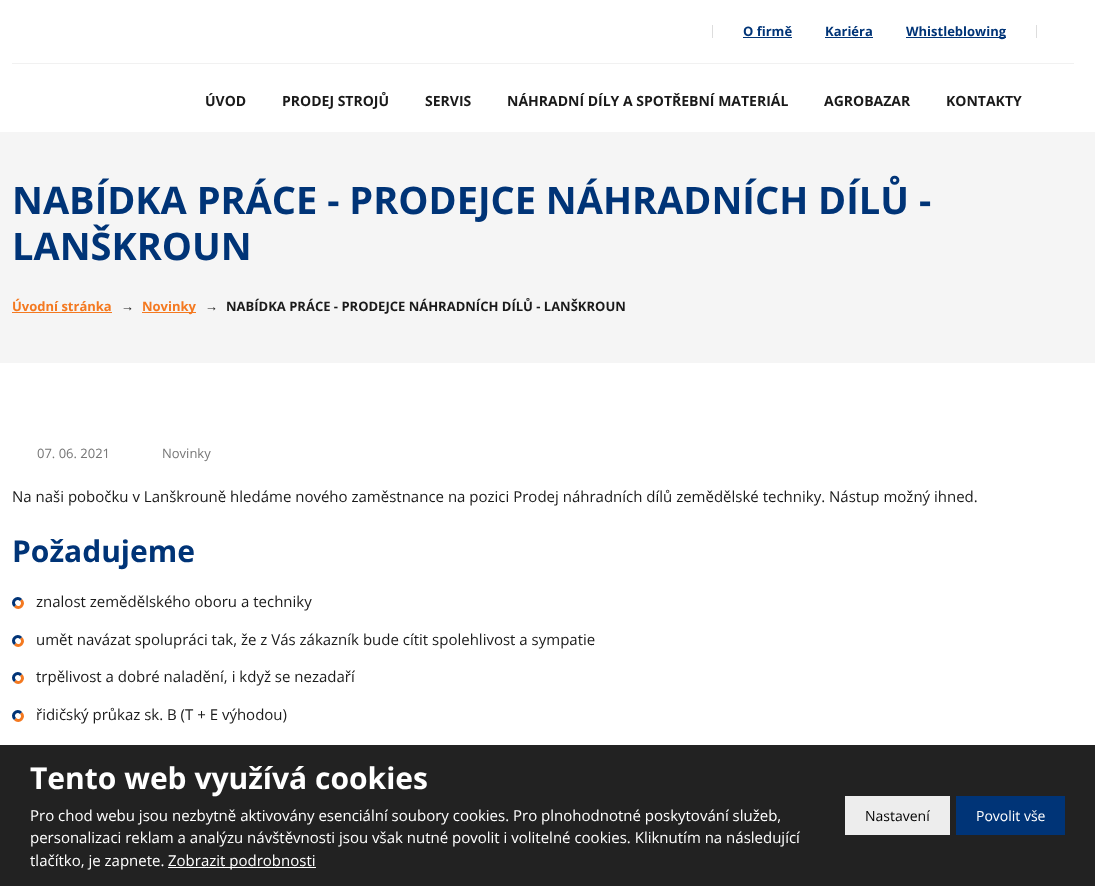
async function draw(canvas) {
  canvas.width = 1095
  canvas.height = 886
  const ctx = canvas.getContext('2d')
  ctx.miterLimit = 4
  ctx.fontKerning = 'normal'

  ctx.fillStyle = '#fff'
  ctx.fillRect(0, 0, 1095, 886)
  ctx.fillStyle = '#ddd'
  ctx.fillRect(1036, 25, 1, 13)
  ctx.fillRect(712, 25, 1, 13)
  ctx.font = 'bold 13px Open Sans'
  ctx.fillStyle = '#003477'
  ctx.fillText('O firmě', 743, 36)
  ctx.fillRect(743, 37, 49, 1)
  ctx.fillText('Kariéra', 825, 36)
  ctx.fillRect(825, 37, 48, 1)
  ctx.fillRect(906, 37, 100, 1)
  ctx.fillText('Whistleblowing', 906, 36)
  ctx.fillStyle = '#f1f1f1'
  ctx.fillRect(12, 63, 1062, 1)
  ctx.font = 'bold 14px Open Sans'
  ctx.fillStyle = '#1a1a1a'
  ctx.fillText('ÚVOD', 205, 106)
  ctx.fillText('PRODEJ STROJŮ', 282, 106)
  ctx.fillText('SERVIS', 425, 106)
  ctx.fillText('NÁHRADNÍ DÍLY A SPOTŘEBNÍ MATERIÁL', 507, 106)
  ctx.fillText('AGROBAZAR', 824, 106)
  ctx.fillText('KONTAKTY', 946, 106)
  ctx.fillStyle = '#f5f5f5'
  ctx.fillRect(0, 132, 1095, 231)
  ctx.font = 'bold 38px Open Sans'
  ctx.fillStyle = '#003477'
  ctx.fillText('NABÍDKA PRÁCE - PRODEJCE NÁHRADNÍCH DÍLŮ -', 12, 214)
  ctx.fillText('LANŠKROUN', 12, 260)
  ctx.font = 'bold 13px Open Sans'
  ctx.fillStyle = '#f47920'
  ctx.fillText('Úvodní stránka', 12, 311)
  ctx.fillRect(12, 312, 100, 1)
  ctx.font = 'bold 13px Liberation Sans'
  ctx.fillStyle = '#1a1a1a'
  ctx.fillText('→', 121, 311)
  ctx.fillStyle = '#f47920'
  ctx.fillRect(142, 312, 54, 1)
  ctx.font = 'bold 13px Open Sans'
  ctx.fillText('Novinky', 142, 311)
  ctx.font = 'bold 13px Liberation Sans'
  ctx.fillStyle = '#1a1a1a'
  ctx.fillText('→', 205, 311)
  ctx.font = 'bold 13px Open Sans'
  ctx.fillText('NABÍDKA PRÁCE - PRODEJCE NÁHRADNÍCH DÍLŮ - LANŠKROUN', 226, 311)
  ctx.font = '13px Open Sans'
  ctx.fillStyle = '#777'
  ctx.fillText('07. 06. 2021', 37, 458)
  ctx.fillText('Novinky', 162, 458)
  ctx.font = '15px Open Sans'
  ctx.fillStyle = '#1a1a1a'
  ctx.fillText('Na naši pobočku v Lanškrouně hledáme nového zaměstnance na pozici Prodej náhradních dílů zemědělské techniky. Nástup možný ihned.', 12, 502)
  ctx.font = 'bold 30px Open Sans'
  ctx.fillStyle = '#003477'
  ctx.fillText('Požadujeme', 12, 562)
  ctx.beginPath()
  ctx.moveTo(21, 600)
  ctx.bezierCurveTo(25.5, 604, 19, 610.5, 15, 606)
  ctx.strokeStyle = '#f47920'
  ctx.lineWidth = 3
  ctx.stroke()
  ctx.beginPath()
  ctx.moveTo(15, 606)
  ctx.bezierCurveTo(10.5, 602, 17, 595.5, 21, 600)
  ctx.strokeStyle = '#003477'
  ctx.stroke()
  ctx.font = '15px Open Sans'
  ctx.fillStyle = '#1a1a1a'
  ctx.fillText('znalost zemědělského oboru a techniky', 36, 607)
  ctx.beginPath()
  ctx.moveTo(21, 638)
  ctx.bezierCurveTo(25.5, 642, 19, 648.5, 15, 644)
  ctx.strokeStyle = '#f47920'
  ctx.stroke()
  ctx.beginPath()
  ctx.moveTo(15, 644)
  ctx.bezierCurveTo(10.5, 640, 17, 633.5, 21, 638)
  ctx.strokeStyle = '#003477'
  ctx.stroke()
  ctx.fillText('umět navázat spolupráci tak, že z Vás zákazník bude cítit spolehlivost a sympatie', 36, 645)
  ctx.beginPath()
  ctx.moveTo(21, 675)
  ctx.bezierCurveTo(25.5, 679, 19, 685.5, 15, 681)
  ctx.strokeStyle = '#f47920'
  ctx.stroke()
  ctx.beginPath()
  ctx.moveTo(15, 681)
  ctx.bezierCurveTo(10.5, 677, 17, 670.5, 21, 675)
  ctx.strokeStyle = '#003477'
  ctx.stroke()
  ctx.fillText('trpělivost a dobré naladění, i když se nezadaří', 36, 682)
  ctx.beginPath()
  ctx.moveTo(21, 713)
  ctx.bezierCurveTo(25.5, 717, 19, 723.5, 15, 719)
  ctx.strokeStyle = '#f47920'
  ctx.stroke()
  ctx.beginPath()
  ctx.moveTo(15, 719)
  ctx.bezierCurveTo(10.5, 715, 17, 708.5, 21, 713)
  ctx.strokeStyle = '#003477'
  ctx.stroke()
  ctx.fillText('řidičský průkaz sk. B (T + E výhodou)', 36, 720)
  ctx.fillStyle = '#222'
  ctx.fillRect(0, 745, 1095, 141)
  ctx.font = 'bold 30px Open Sans'
  ctx.fillStyle = '#fff'
  ctx.fillText('Tento web využívá cookies', 30, 789)
  ctx.font = '15px Open Sans'
  ctx.fillText('Pro chod webu jsou nezbytně aktivovány esenciální soubory cookies. Pro plnohodnotné poskytování služeb,', 30, 821)
  ctx.fillText('personalizaci reklam a analýzu návštěvnosti jsou však nutné povolit i volitelné cookies. Kliknutím na následující', 30, 843)
  ctx.fillText('tlačítko, je zapnete.', 30, 866)
  ctx.fillRect(168, 867, 148, 1)
  ctx.fillText('Zobrazit podrobnosti', 168, 866)
  ctx.fillStyle = '#ededed'
  ctx.fillRect(845, 796, 105, 39)
  ctx.font = '14px Open Sans'
  ctx.fillStyle = '#000'
  ctx.fillText('Nastavení', 865, 821)
  ctx.fillStyle = '#003477'
  ctx.fillRect(956, 796, 109, 39)
  ctx.fillStyle = '#fff'
  ctx.fillText('Povolit vše', 976, 821)
}

draw(document.querySelector('canvas'))
